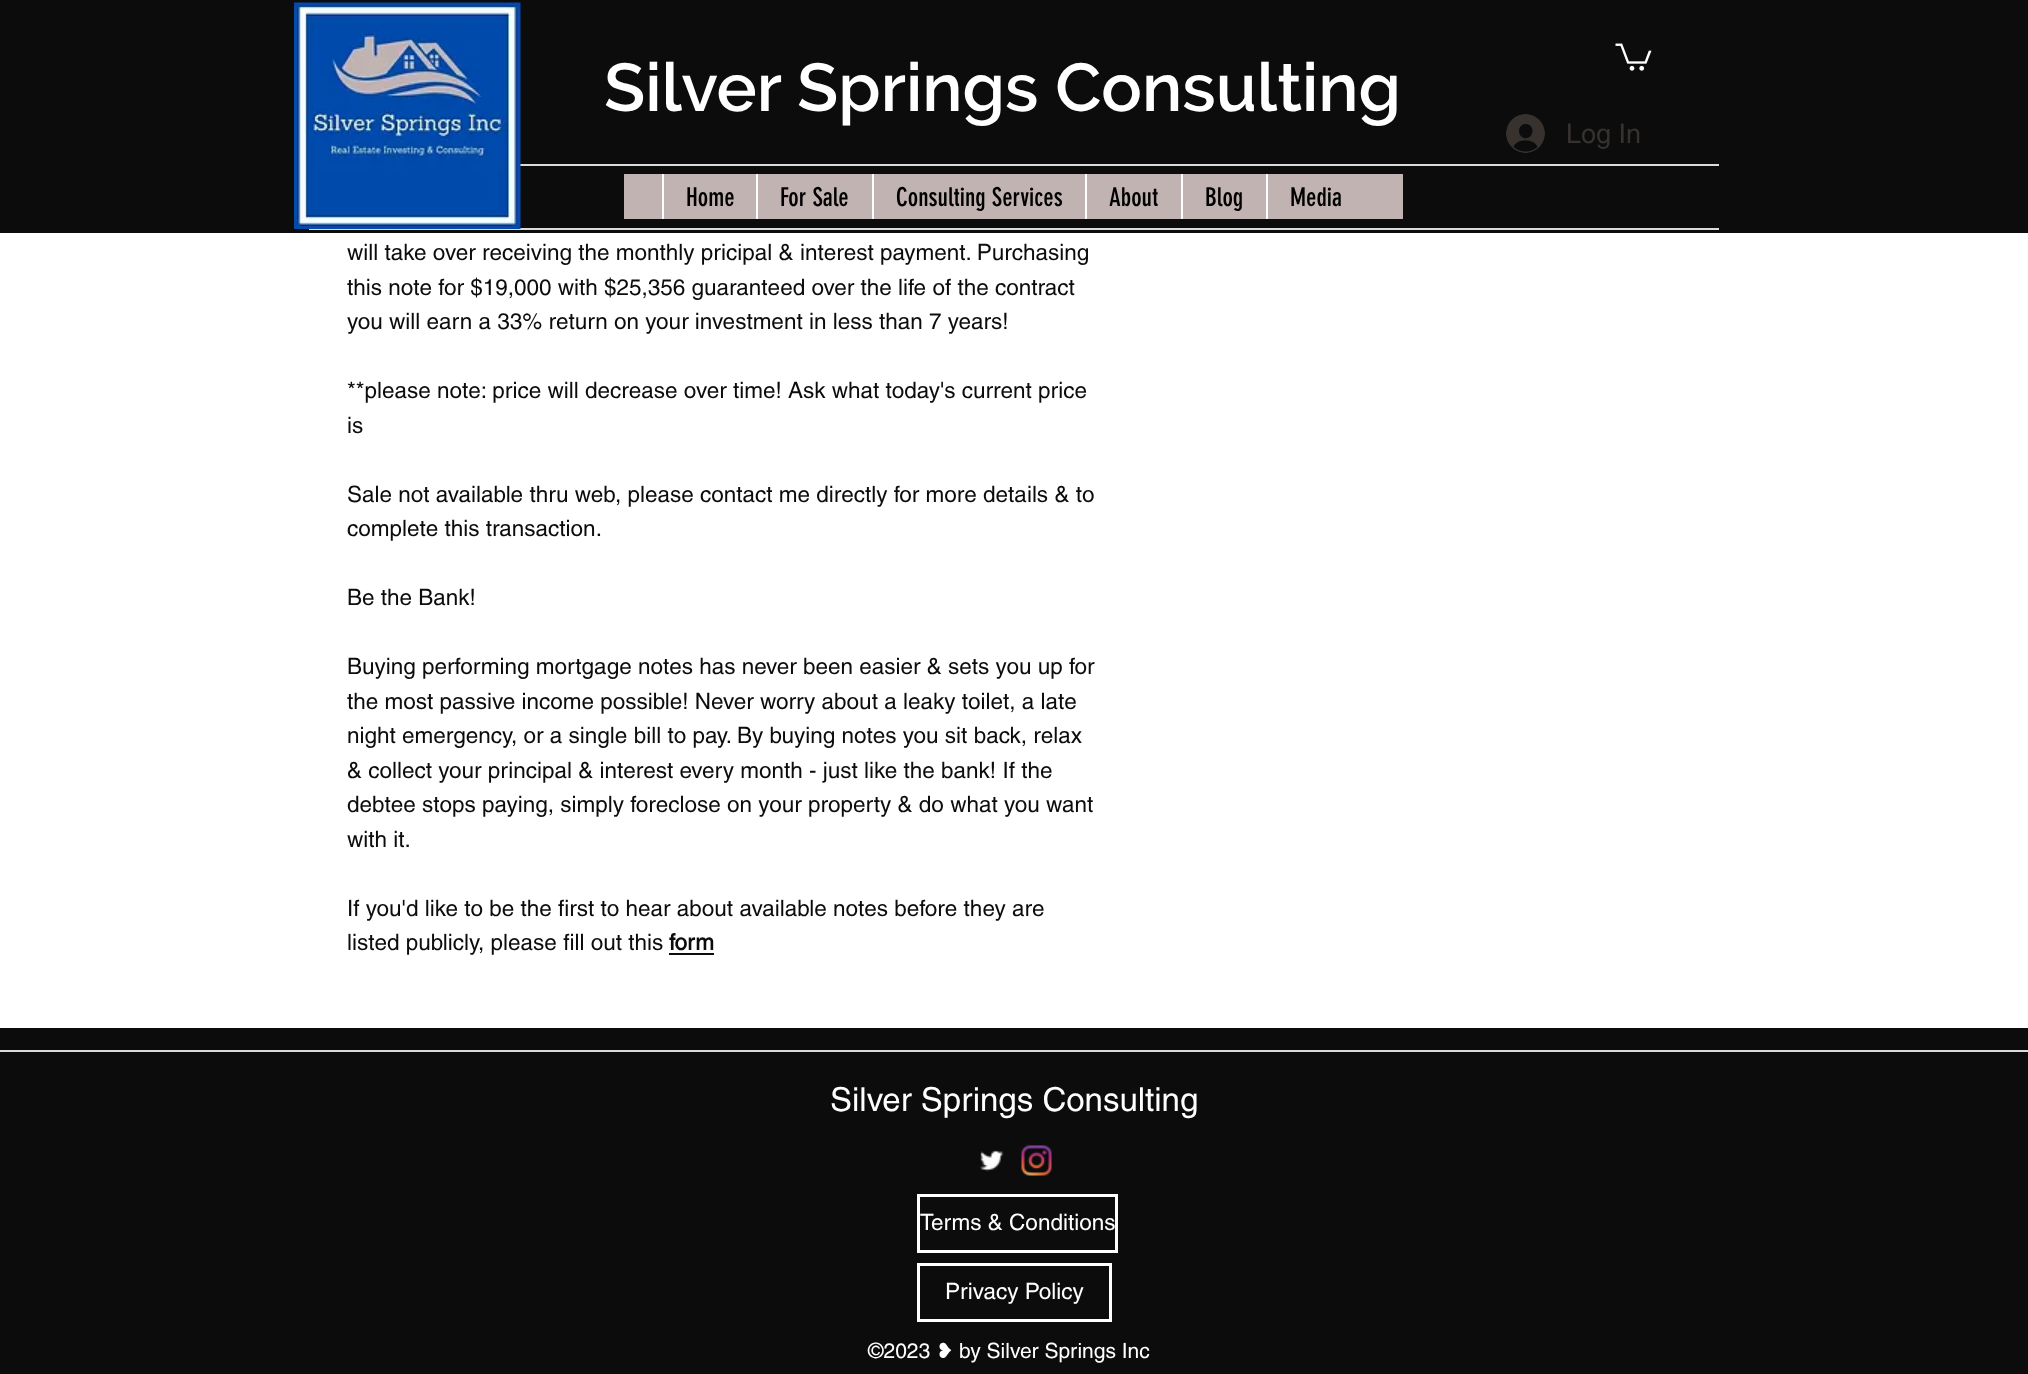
async function draw(canvas) {
  canvas.width = 2028
  canvas.height = 1374
  const ctx = canvas.getContext('2d')
  ctx.miterLimit = 4
  ctx.fontKerning = 'normal'
  async function loadImage(src) {
    const img = new Image()
    img.src = src
    await img.decode()
    return img
  }

  ctx.fillStyle = '#fff'
  ctx.fillRect(0, 0, 2028, 1374)
  ctx.fillStyle = '#0c0c0d'
  ctx.fillRect(0, 0, 2028, 233)
  ctx.fillStyle = '#dbdbdb'
  ctx.fillRect(520, 164, 1199, 2)
  ctx.fillRect(309, 228, 1410, 2)
  ctx.drawImage(await loadImage('image0.png'), 294, 2, 227, 227)
  ctx.drawImage(await loadImage('image1.png'), 1615, 43, 37, 28)
  ctx.font = '600 67.5px Raleway'
  ctx.fillStyle = '#fff'
  ctx.fillText('Silver Springs Consulting', 604, 111)
  ctx.drawImage(await loadImage('image2.png'), 1506, 114, 39, 39)
  ctx.font = '27px helvetica'
  ctx.fillStyle = '#37322e'
  ctx.fillText('Log In', 1566, 143)
  ctx.fillStyle = '#c2b3b3'
  ctx.fillRect(624, 174, 779, 45)
  ctx.fillStyle = '#fff'
  ctx.fillRect(662, 174, 2, 45)
  ctx.font = '25.5px "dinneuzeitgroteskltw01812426"'
  ctx.fillStyle = '#000'
  ctx.fillText('Home', 686, 206)
  ctx.fillStyle = '#fff'
  ctx.fillRect(756, 174, 2, 45)
  ctx.fillStyle = '#000'
  ctx.fillText('For Sale', 780, 206)
  ctx.fillStyle = '#fff'
  ctx.fillRect(872, 174, 2, 45)
  ctx.fillStyle = '#000'
  ctx.fillText('Consulting Services', 896, 206)
  ctx.fillStyle = '#fff'
  ctx.fillRect(1085, 174, 2, 45)
  ctx.fillStyle = '#000'
  ctx.fillText('About', 1109, 206)
  ctx.fillStyle = '#fff'
  ctx.fillRect(1181, 174, 2, 45)
  ctx.fillStyle = '#000'
  ctx.fillText('Blog', 1205, 206)
  ctx.fillStyle = '#fff'
  ctx.fillRect(1266, 174, 2, 45)
  ctx.fillStyle = '#000'
  ctx.fillText('Media', 1290, 206)
  ctx.font = '22.5px helvetica'
  ctx.fillStyle = '#0c0c0d'
  ctx.fillText('will take over receiving the monthly pricipal & interest payment. Purchasing', 347, 260)
  ctx.fillText('this note for $19,000 with $25,356 guaranteed over the life of the contract', 347, 295)
  ctx.fillText('you will earn a 33% return on your investment in less than 7 years!', 347, 329)
  ctx.fillText('**please note: price will decrease over time! Ask what today\'s current price', 347, 398)
  ctx.fillText('is', 347, 433)
  ctx.fillText('Sale not available thru web, please contact me directly for more details & to', 347, 502)
  ctx.fillText('complete this transaction.', 347, 536)
  ctx.fillText('Be the Bank!', 347, 605)
  ctx.fillText('Buying performing mortgage notes has never been easier & sets you up for', 347, 674)
  ctx.fillText('the most passive income possible! Never worry about a leaky toilet, a late', 347, 709)
  ctx.fillText('night emergency, or a single bill to pay. By buying notes you sit back, relax', 347, 743)
  ctx.fillText('& collect your principal & interest every month - just like the bank! If the', 347, 778)
  ctx.fillText('debtee stops paying, simply foreclose on your property & do what you want', 347, 812)
  ctx.fillText('with it.', 347, 847)
  ctx.fillText('If you\'d like to be the first to hear about available notes before they are', 347, 916)
  ctx.fillText('listed publicly, please fill out this', 347, 950)
  ctx.font = 'bold 22.5px helvetica'
  ctx.fillText('form', 669, 950)
  ctx.fillRect(669, 953, 45, 2)
  ctx.fillRect(0, 1028, 2028, 346)
  ctx.fillStyle = '#dbdbdb'
  ctx.fillRect(0, 1050, 2028, 2)
  ctx.font = '33px helvetica'
  ctx.fillStyle = '#fff'
  ctx.fillText('Silver Springs Consulting', 830, 1111)
  ctx.drawImage(await loadImage('image3.png'), 979, 1150, 25, 22)
  ctx.drawImage(await loadImage('image4.png'), 1021, 1145, 31, 31)
  ctx.strokeStyle = '#fff'
  ctx.lineWidth = 3
  ctx.strokeRect(918.5, 1195.5, 198, 56)
  ctx.font = '22.5px helvetica'
  ctx.fillText('Terms & Conditions', 920, 1230)
  ctx.strokeRect(918.5, 1264.5, 192, 56)
  ctx.fillText('Privacy Policy', 945, 1299)
  ctx.font = '21px helvetica'
  ctx.fillText('©2023', 868, 1358)
  ctx.font = '21px DejaVu Sans'
  ctx.fillText('❥', 936, 1358)
  ctx.font = '21px helvetica'
  ctx.fillText('by Silver Springs Inc', 959, 1358)
}

draw(document.querySelector('canvas'))
